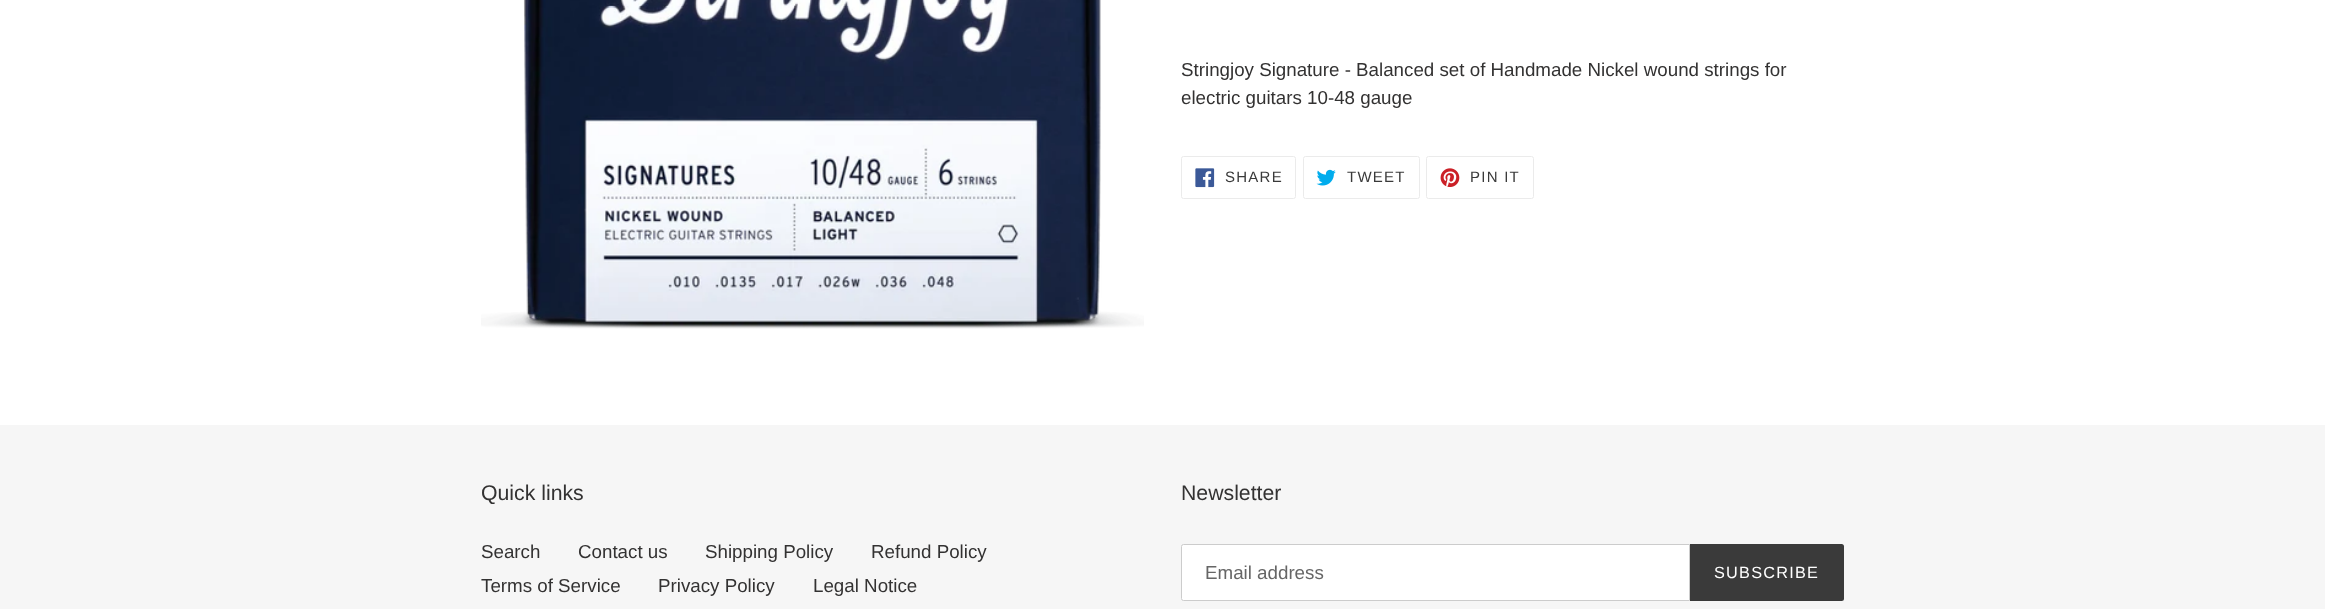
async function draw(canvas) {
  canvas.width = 2325
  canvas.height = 609
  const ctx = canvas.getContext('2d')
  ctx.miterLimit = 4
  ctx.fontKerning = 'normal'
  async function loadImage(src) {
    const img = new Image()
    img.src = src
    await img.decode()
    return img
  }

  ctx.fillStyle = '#fff'
  ctx.fillRect(0, 0, 2325, 609)
  ctx.drawImage(await loadImage('image0.png'), 481, 0, 663, 329)
  ctx.font = '18.75px Liberation Sans'
  ctx.fillStyle = '#333232'
  ctx.fillText('Stringjoy Signature - Balanced set of Handmade Nickel wound strings for', 1181, 76)
  ctx.fillText('electric guitars 10-48 gauge', 1181, 104)
  ctx.beginPath()
  ctx.roundRect(1181.5, 156.5, 114, 42, 2)
  ctx.strokeStyle = '#ebebeb'
  ctx.stroke()
  ctx.drawImage(await loadImage('image1.png'), 1195, 168, 20, 20)
  ctx.letterSpacing = '1.25px'
  ctx.font = '15px Liberation Sans'
  ctx.fillStyle = '#3a3a3a'
  ctx.fillText('SHARE', 1225, 182)
  ctx.beginPath()
  ctx.roundRect(1303.5, 156.5, 116, 42, 2)
  ctx.stroke()
  ctx.drawImage(await loadImage('image2.png'), 1316, 169, 20, 17)
  ctx.fillText('TWEET', 1347, 182)
  ctx.beginPath()
  ctx.roundRect(1426.5, 156.5, 107, 42, 2)
  ctx.stroke()
  ctx.drawImage(await loadImage('image3.png'), 1440, 168, 20, 19)
  ctx.fillText('PIN IT', 1470, 182)
  ctx.fillStyle = '#f6f6f6'
  ctx.fillRect(0, 425, 2325, 184)
  ctx.letterSpacing = '0px'
  ctx.font = '21.25px Liberation Sans'
  ctx.fillStyle = '#333232'
  ctx.fillText('Quick links', 481, 500)
  ctx.font = '18.75px Liberation Sans'
  ctx.fillText('Search', 481, 558)
  ctx.fillText('Contact us', 578, 558)
  ctx.fillText('Shipping Policy', 705, 558)
  ctx.fillText('Refund Policy', 871, 558)
  ctx.fillText('Terms of Service', 481, 592)
  ctx.fillText('Privacy Policy', 658, 592)
  ctx.fillText('Legal Notice', 813, 592)
  ctx.font = '21.25px Liberation Sans'
  ctx.fillText('Newsletter', 1181, 500)
  ctx.fillStyle = '#fff'
  ctx.beginPath()
  ctx.roundRect(1181.5, 544.5, 508, 56, [2, 0, 0, 2])
  ctx.fill()
  ctx.strokeStyle = '#ccc'
  ctx.stroke()
  ctx.font = '18.75px Liberation Sans'
  ctx.fillStyle = '#666'
  ctx.fillText('Email address', 1205, 579)
  ctx.fillStyle = '#3a3a3a'
  ctx.beginPath()
  ctx.roundRect(1690, 544, 154, 57, [0, 2.5, 2.5, 0])
  ctx.fill()
  ctx.letterSpacing = '1.25px'
  ctx.font = '16.25px Liberation Sans'
  ctx.fillStyle = '#fff'
  ctx.fillText('SUBSCRIBE', 1714, 578)
}

draw(document.querySelector('canvas'))
